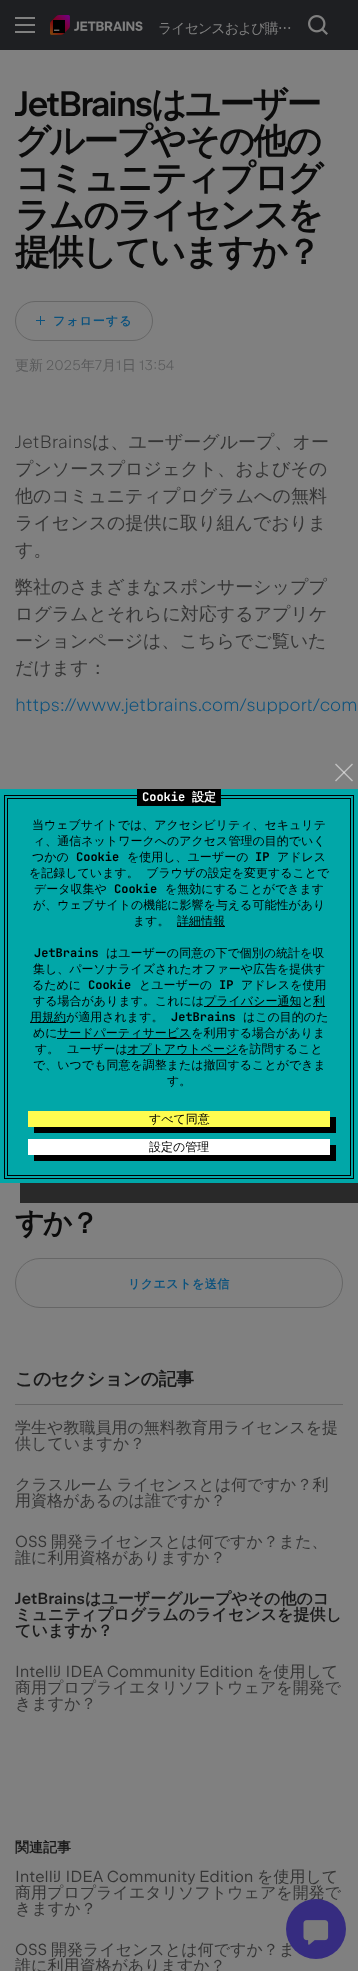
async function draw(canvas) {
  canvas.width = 358
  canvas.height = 1971
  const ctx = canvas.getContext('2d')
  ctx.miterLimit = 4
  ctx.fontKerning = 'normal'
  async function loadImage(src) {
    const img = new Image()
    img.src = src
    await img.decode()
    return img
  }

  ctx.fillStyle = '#808080'
  ctx.fillRect(0, 0, 358, 1971)
  ctx.fillStyle = '#1e1f22'
  ctx.fillRect(0, 0, 358, 50)
  ctx.fillStyle = '#808080'
  ctx.fillRect(15, 24, 20, 2)
  ctx.fillRect(15, 17, 20, 2)
  ctx.fillRect(15, 31, 20, 2)
  ctx.drawImage(await loadImage('image0.png'), 50, 15, 93, 20)
  ctx.letterSpacing = '-1px'
  ctx.font = '500 14px WenQuanYi Zen Hei'
  ctx.fillText('ライセンスおよび購…', 158, 33)
  ctx.drawImage(await loadImage('image1.png'), 308, 15, 20, 20)
  ctx.letterSpacing = '-2px'
  ctx.font = '600 35.25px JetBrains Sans'
  ctx.fillStyle = '#0b0b0b'
  ctx.fillText('JetBrains', 15, 116)
  ctx.font = 'bold 35.25px WenQuanYi Zen Hei'
  ctx.fillText('はユーザー', 151, 116)
  ctx.fillText('グループやその他の', 15, 153)
  ctx.fillText('コミュニティプログ', 15, 190)
  ctx.fillText('ラムのライセンスを', 15, 227)
  ctx.fillText('提供していますか？', 15, 264)
  ctx.beginPath()
  ctx.roundRect(15.5, 301.5, 137, 39, 19.5)
  ctx.strokeStyle = '#666'
  ctx.stroke()
  ctx.drawImage(await loadImage('image2.png'), 36, 316, 9, 9)
  ctx.letterSpacing = '1px'
  ctx.font = 'bold 12px WenQuanYi Zen Hei'
  ctx.fillStyle = '#0c527d'
  ctx.fillText('フォローする', 53, 325)
  ctx.letterSpacing = '0px'
  ctx.font = '500 14px WenQuanYi Zen Hei'
  ctx.fillStyle = '#58595a'
  ctx.fillText('更新', 15, 370)
  ctx.font = '300 14px JetBrains Sans'
  ctx.fillText('2025', 46, 370)
  ctx.font = '500 14px WenQuanYi Zen Hei'
  ctx.fillText('年', 81, 370)
  ctx.font = '300 14px JetBrains Sans'
  ctx.fillText('7', 95, 370)
  ctx.font = '500 14px WenQuanYi Zen Hei'
  ctx.fillText('月', 102, 370)
  ctx.font = '300 14px JetBrains Sans'
  ctx.fillText('1', 116, 370)
  ctx.font = '500 14px WenQuanYi Zen Hei'
  ctx.fillText('日', 122, 370)
  ctx.font = '300 14px JetBrains Sans'
  ctx.fillText('13:54', 139, 370)
  ctx.font = '300 18px JetBrains Sans'
  ctx.fillStyle = '#353535'
  ctx.fillText('JetBrains', 15, 448)
  ctx.font = '500 18px WenQuanYi Zen Hei'
  ctx.fillText('は、ユーザーグループ、オー', 92, 448)
  ctx.fillText('プンソースプロジェクト、およびその', 15, 475)
  ctx.fillText('他のコミュニティプログラムへの無料', 15, 502)
  ctx.fillText('ライセンスの提供に取り組んでおりま', 15, 529)
  ctx.fillText('す。', 15, 556)
  ctx.fillText('弊社のさまざまなスポンサーシッププ', 15, 593)
  ctx.fillText('ログラムとそれらに対応するアプリケ', 15, 620)
  ctx.fillText('ーションページは、こちらでご覧いた', 15, 647)
  ctx.fillText('だけます：', 15, 674)
  ctx.font = '300 18px JetBrains Sans'
  ctx.fillStyle = '#0c527d'
  ctx.fillText('https://www.jetbrains.com/support/com', 15, 711)
  ctx.letterSpacing = '-2px'
  ctx.font = 'bold 29px WenQuanYi Zen Hei'
  ctx.fillStyle = '#0b0b0b'
  ctx.fillText('すか？', 15, 1233)
  ctx.beginPath()
  ctx.roundRect(15.5, 1258.5, 327, 49, 24.5)
  ctx.stroke()
  ctx.letterSpacing = '0.5px'
  ctx.font = 'bold 12px WenQuanYi Zen Hei'
  ctx.fillStyle = '#0c527d'
  ctx.fillText('リクエストを送信', 128, 1288)
  ctx.fillStyle = '#666'
  ctx.fillRect(15, 1404, 328, 1)
  ctx.letterSpacing = '-0.5px'
  ctx.font = 'bold 18px WenQuanYi Zen Hei'
  ctx.fillStyle = '#1a1a1a'
  ctx.fillText('このセクションの記事', 15, 1385)
  ctx.letterSpacing = '0px'
  ctx.font = '500 16px WenQuanYi Zen Hei'
  ctx.fillStyle = '#353535'
  ctx.fillText('学生や教職員用の無料教育用ライセンスを提', 15, 1433)
  ctx.fillText('供していますか？', 15, 1449)
  ctx.wordSpacing = '-1px'
  ctx.fillText('クラスルーム ライセンスとは何ですか？利', 15, 1490)
  ctx.wordSpacing = '0px'
  ctx.fillText('用資格があるのは誰ですか？', 15, 1506)
  ctx.font = '16px JetBrains Sans'
  ctx.fillText('OSS', 15, 1547)
  ctx.font = '500 16px WenQuanYi Zen Hei'
  ctx.fillText('開発ライセンスとは何ですか？また、', 51, 1547)
  ctx.fillText('誰に利用資格がありますか？', 15, 1563)
  ctx.font = '600 16px JetBrains Sans'
  ctx.fillStyle = '#1a1a1a'
  ctx.fillText('JetBrains', 15, 1604)
  ctx.font = 'bold 16px WenQuanYi Zen Hei'
  ctx.fillText('はユーザーグループやその他のコ', 85, 1604)
  ctx.fillText('ミュニティプログラムのライセンスを提供し', 15, 1620)
  ctx.fillText('ていますか？', 15, 1636)
  ctx.font = '16px JetBrains Sans'
  ctx.fillStyle = '#353535'
  ctx.fillText('IntelliJ IDEA Community Edition', 15, 1677)
  ctx.font = '500 16px WenQuanYi Zen Hei'
  ctx.fillText('を使用して', 257, 1677)
  ctx.fillText('商用プロプライエタリソフトウェアを開発で', 15, 1693)
  ctx.fillText('きますか？', 15, 1709)
  ctx.font = 'bold 14px WenQuanYi Zen Hei'
  ctx.fillStyle = '#1a1a1a'
  ctx.fillText('関連記事', 15, 1852)
  ctx.font = '16px JetBrains Sans'
  ctx.fillStyle = '#353535'
  ctx.fillText('IntelliJ IDEA Community Edition', 15, 1882)
  ctx.font = '500 16px WenQuanYi Zen Hei'
  ctx.fillText('を使用して', 257, 1882)
  ctx.fillText('商用プロプライエタリソフトウェアを開発で', 15, 1898)
  ctx.fillText('きますか？', 15, 1914)
  ctx.font = '16px JetBrains Sans'
  ctx.fillText('OSS', 15, 1955)
  ctx.font = '500 16px WenQuanYi Zen Hei'
  ctx.fillText('開発ライセンスとは何ですか？ま', 51, 1955)
  ctx.fillText('誰に利用資格がありますか？', 15, 1971)
  ctx.fillStyle = '#000000ad'
  ctx.beginPath()
  ctx.moveTo(20, 1183)
  ctx.lineTo(20, 1203)
  ctx.lineTo(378, 1203)
  ctx.lineTo(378, 809)
  ctx.lineTo(358, 809)
  ctx.lineTo(358, 1183)
  ctx.closePath()
  ctx.fill()
  ctx.fillStyle = '#01a7a8'
  ctx.fillRect(0, 789, 358, 394)
  ctx.fillStyle = '#bfbfbf'
  ctx.beginPath()
  ctx.moveTo(335, 780.5)
  ctx.lineTo(352, 763.5)
  ctx.lineTo(353, 764.5)
  ctx.lineTo(336, 781.5)
  ctx.closePath()
  ctx.fill()
  ctx.fillStyle = '#ffffff80'
  ctx.beginPath()
  ctx.moveTo(336, 763.5)
  ctx.lineTo(353, 780.5)
  ctx.lineTo(352, 781.5)
  ctx.lineTo(335, 764.5)
  ctx.closePath()
  ctx.fill()
  ctx.fillStyle = '#000'
  ctx.fillRect(7, 798, 344, 1)
  ctx.fillRect(350, 798, 1, 378)
  ctx.fillRect(7, 798, 1, 313)
  ctx.fillRect(4, 795, 350, 1)
  ctx.fillRect(137, 789, 84, 17)
  ctx.font = 'bold 12px JetBrains Mono'
  ctx.fillStyle = '#fff'
  ctx.fillText('Cookie', 142, 801)
  ctx.font = 'bold 12px WenQuanYi Zen Hei'
  ctx.fillText('設定', 192, 801)
  ctx.fillStyle = '#000'
  ctx.fillRect(353, 795, 1, 384)
  ctx.fillRect(4, 795, 1, 315)
  ctx.font = '500 12px WenQuanYi Zen Hei'
  ctx.fillText('当ウェブサイトでは、アクセシビリティ、セキュリテ', 32, 829)
  ctx.fillText('ィ、通信ネットワークへのアクセス管理の目的でいく', 33, 845)
  ctx.fillText('つかの', 32, 861)
  ctx.font = 'bold 12px JetBrains Mono'
  ctx.fillText('Cookie', 76, 861)
  ctx.font = '500 12px WenQuanYi Zen Hei'
  ctx.fillText('を使用し、ユーザーの', 127, 861)
  ctx.font = 'bold 12px JetBrains Mono'
  ctx.fillText('IP', 255, 861)
  ctx.font = '500 12px WenQuanYi Zen Hei'
  ctx.fillText('アドレス', 277, 861)
  ctx.wordSpacing = '4px'
  ctx.fillText('を記録しています。 ブラウザの設定を変更することで', 29, 877)
  ctx.wordSpacing = '0px'
  ctx.fillText('データ収集や', 34, 893)
  ctx.font = 'bold 12px JetBrains Mono'
  ctx.fillText('Cookie', 114, 893)
  ctx.font = '500 12px WenQuanYi Zen Hei'
  ctx.fillText('を無効にすることができます', 165, 893)
  ctx.fillText('が、ウェブサイトの機能に影響を与える可能性があり', 33, 909)
  ctx.fillText('ます。', 133, 925)
  ctx.fillRect(177, 926, 48, 1)
  ctx.fillText('詳細情報', 177, 925)
  ctx.font = 'bold 12px JetBrains Mono'
  ctx.fillText('JetBrains', 34, 957)
  ctx.font = '500 12px WenQuanYi Zen Hei'
  ctx.fillText('はユーザーの同意の下で個別の統計を収', 106, 957)
  ctx.fillText('集し、パーソナライズされたオファーや広告を提供す', 33, 973)
  ctx.fillText('るために', 32, 989)
  ctx.font = 'bold 12px JetBrains Mono'
  ctx.fillText('Cookie', 88, 989)
  ctx.font = '500 12px WenQuanYi Zen Hei'
  ctx.fillText('とユーザーの', 139, 989)
  ctx.font = 'bold 12px JetBrains Mono'
  ctx.fillText('IP', 219, 989)
  ctx.font = '500 12px WenQuanYi Zen Hei'
  ctx.fillText('アドレスを使用', 241, 989)
  ctx.fillText('する場合があります。これには', 33, 1005)
  ctx.fillRect(204, 1006, 97, 1)
  ctx.fillText('プライバシー通知と', 204, 1005)
  ctx.fillRect(313, 1006, 12, 1)
  ctx.fillText('利', 313, 1005)
  ctx.fillRect(30, 1022, 36, 1)
  ctx.fillText('用規約が適用されます。', 30, 1021)
  ctx.font = 'bold 12px JetBrains Mono'
  ctx.fillText('JetBrains', 171, 1021)
  ctx.font = '500 12px WenQuanYi Zen Hei'
  ctx.fillText('はこの目的のた', 243, 1021)
  ctx.fillText('めに', 33, 1037)
  ctx.fillRect(57, 1038, 134, 1)
  ctx.fillText('サードパーティサービスを利用する場合がありま', 57, 1037)
  ctx.wordSpacing = '4px'
  ctx.fillText('す。 ユーザーは', 35, 1053)
  ctx.fillRect(127, 1054, 111, 1)
  ctx.wordSpacing = '0px'
  ctx.fillText('オプトアウトページを訪問すること', 127, 1053)
  ctx.fillText('で、いつでも同意を調整または撤回することができま', 33, 1069)
  ctx.fillText('す。', 167, 1085)
  ctx.fillRect(7, 1175, 344, 1)
  ctx.fillRect(7, 1111, 1, 65)
  ctx.fillRect(4, 1178, 350, 1)
  ctx.fillRect(4, 1110, 1, 69)
  ctx.beginPath()
  ctx.moveTo(34, 1127)
  ctx.lineTo(34, 1133)
  ctx.lineTo(336, 1133)
  ctx.lineTo(336, 1117)
  ctx.lineTo(330, 1117)
  ctx.lineTo(330, 1127)
  ctx.closePath()
  ctx.fill()
  ctx.fillStyle = '#fefc4f'
  ctx.fillRect(28, 1111, 302, 16)
  ctx.fillStyle = '#000'
  ctx.fillText('すべて同意', 149, 1123)
  ctx.beginPath()
  ctx.moveTo(34, 1155)
  ctx.lineTo(34, 1161)
  ctx.lineTo(336, 1161)
  ctx.lineTo(336, 1145)
  ctx.lineTo(330, 1145)
  ctx.lineTo(330, 1155)
  ctx.closePath()
  ctx.fill()
  ctx.fillStyle = '#fff'
  ctx.fillRect(28, 1139, 302, 16)
  ctx.fillStyle = '#000'
  ctx.fillText('設定の管理', 149, 1151)
  ctx.fillStyle = '#362c80'
  ctx.beginPath()
  ctx.arc(316, 1929, 30, 0, 2 * Math.PI)
  ctx.fill()
  ctx.drawImage(await loadImage('image3.png'), 303, 1920, 26, 25)
}

draw(document.querySelector('canvas'))
